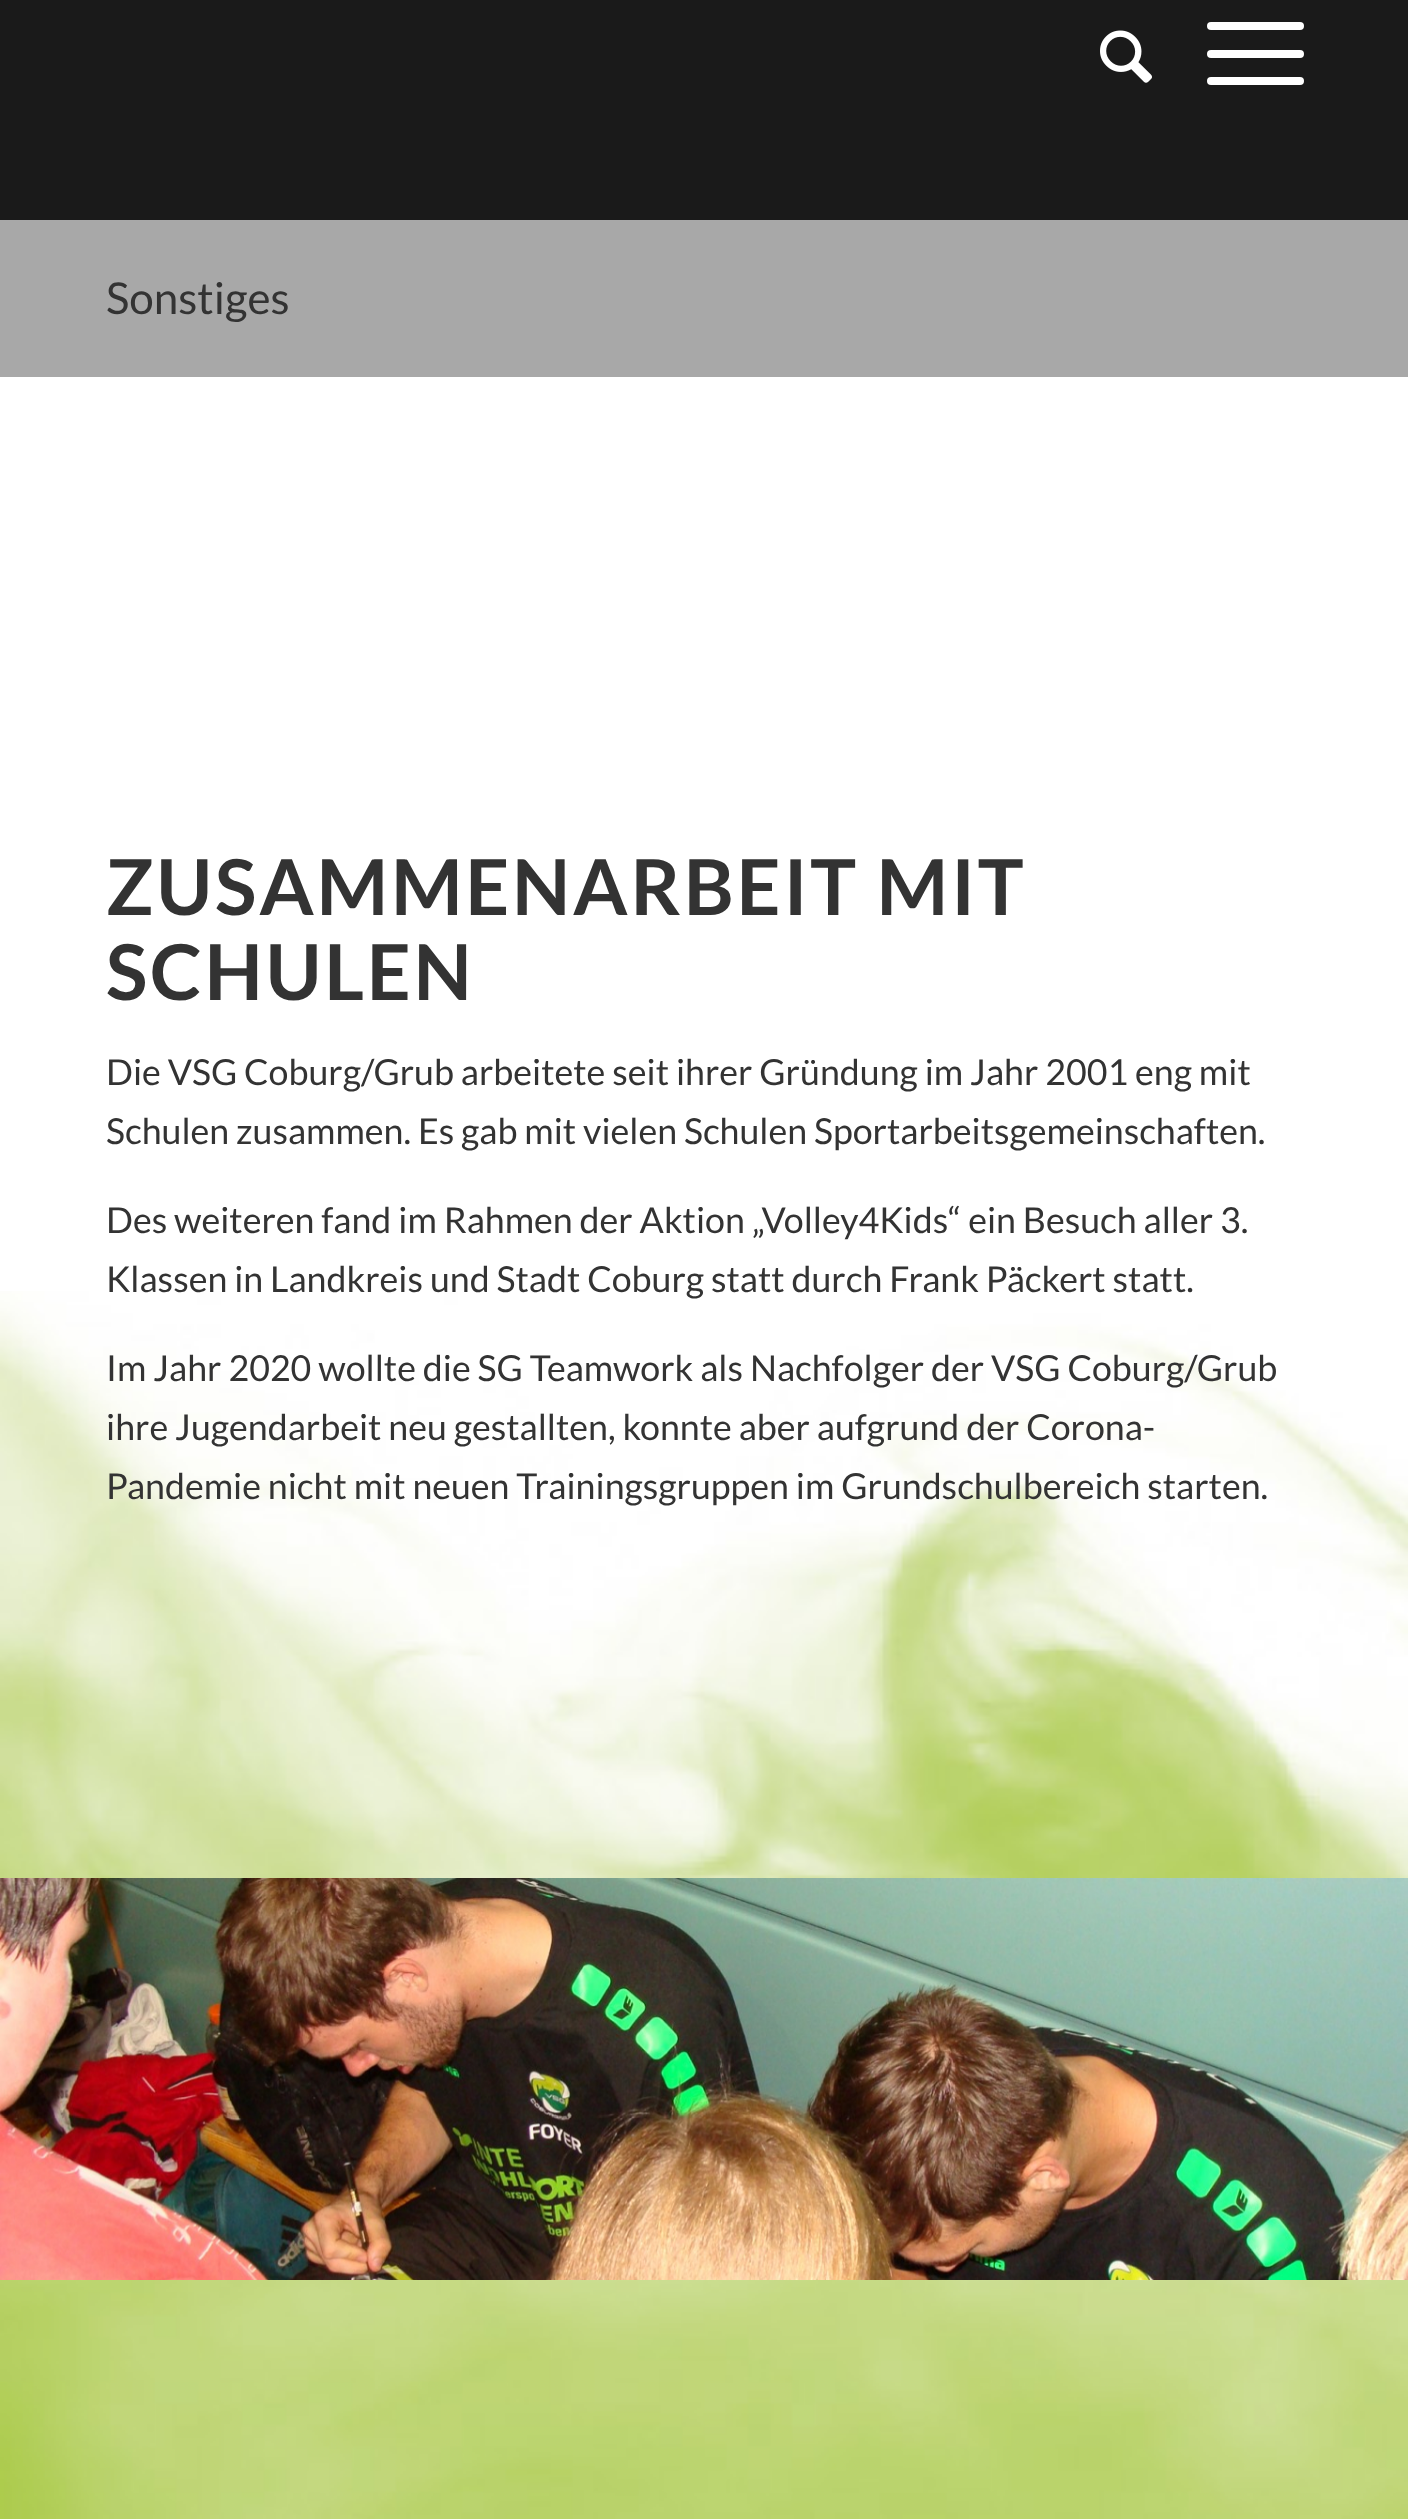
async function draw(canvas) {
  canvas.width = 1408
  canvas.height = 2519
  const ctx = canvas.getContext('2d')
  ctx.miterLimit = 4
  ctx.fontKerning = 'normal'
  async function loadImage(src) {
    const img = new Image()
    img.src = src
    await img.decode()
    return img
  }

  ctx.fillStyle = '#a8a8a8'
  ctx.fillRect(0, 0, 1408, 2519)
  ctx.fillStyle = '#1a1a1a'
  ctx.fillRect(0, 0, 1408, 220)
  ctx.drawImage(await loadImage('image0.png'), 1100, 30, 52, 53)
  ctx.fillStyle = '#fff'
  ctx.beginPath()
  ctx.roundRect(1207, 50, 97, 8, 4)
  ctx.fill()
  ctx.beginPath()
  ctx.roundRect(1207, 22, 97, 8, 4)
  ctx.fill()
  ctx.beginPath()
  ctx.roundRect(1207, 77, 97, 8, 4)
  ctx.fill()
  ctx.font = '44px Lato'
  ctx.fillStyle = '#333'
  ctx.fillText('Sonstiges', 106, 314)
  ctx.fillStyle = '#fff'
  ctx.fillRect(0, 377, 1408, 914)
  ctx.drawImage(await loadImage('image1.png'), 0, 1291, 1408, 587)
  ctx.letterSpacing = '2.75px'
  ctx.font = 'bold 77px Lato'
  ctx.fillStyle = '#333'
  ctx.fillText('ZUSAMMENARBEIT MIT', 106, 915)
  ctx.fillText('SCHULEN', 106, 1000)
  ctx.letterSpacing = '0px'
  ctx.font = '35.75px Lato'
  ctx.fillText('Die VSG Coburg/Grub arbeitete seit ihrer Gründung im Jahr 2001 eng mit', 106, 1085)
  ctx.fillText('Schulen zusammen. Es gab mit vielen Schulen Sportarbeitsgemeinschaften.', 106, 1144)
  ctx.fillText('Des weiteren fand im Rahmen der Aktion „Volley4Kids“ ein Besuch aller 3.', 106, 1233)
  ctx.fillText('Klassen in Landkreis und Stadt Coburg statt durch Frank Päckert statt.', 106, 1292)
  ctx.fillText('Im Jahr 2020 wollte die SG Teamwork als Nachfolger der VSG Coburg/Grub', 106, 1381)
  ctx.fillText('ihre Jugendarbeit neu gestallten, konnte aber aufgrund der Corona-', 106, 1440)
  ctx.fillText('Pandemie nicht mit neuen Trainingsgruppen im Grundschulbereich starten.', 106, 1499)
  ctx.drawImage(await loadImage('image2.png'), 0, 1878, 1408, 402)
  ctx.drawImage(await loadImage('image3.png'), 0, 2280, 1408, 239)
}

draw(document.querySelector('canvas'))
